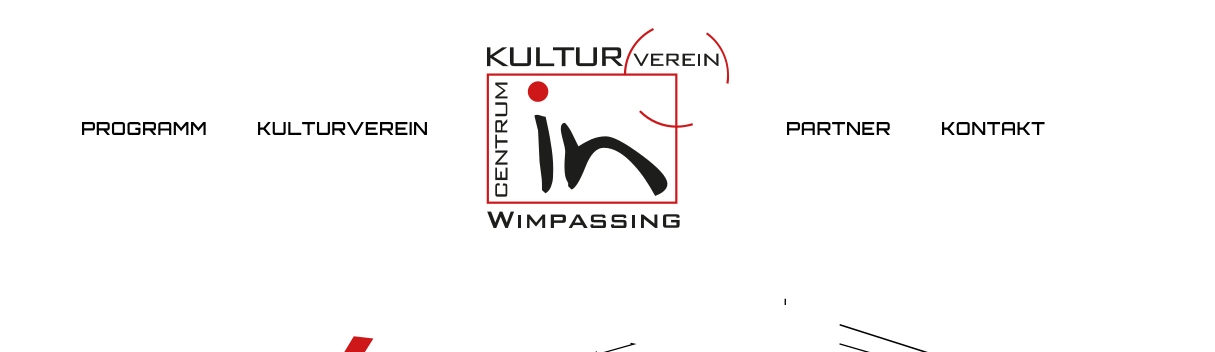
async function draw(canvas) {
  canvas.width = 1215
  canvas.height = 352
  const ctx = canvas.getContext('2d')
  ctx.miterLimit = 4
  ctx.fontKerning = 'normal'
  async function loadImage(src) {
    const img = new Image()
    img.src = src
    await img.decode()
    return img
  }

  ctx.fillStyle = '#fff'
  ctx.fillRect(0, 0, 1215, 352)
  ctx.drawImage(await loadImage('image0.png'), 486, 28, 243, 200)
  ctx.letterSpacing = '0.5px'
  ctx.font = '600 18px Orbitron'
  ctx.fillStyle = '#000'
  ctx.fillText('PROGRAMM', 81, 135)
  ctx.fillText('KULTURVEREIN', 257, 135)
  ctx.fillText('PARTNER', 786, 135)
  ctx.fillText('KONTAKT', 941, 135)
  ctx.drawImage(await loadImage('image1.png'), 344, 298, 584, 54)
}

draw(document.querySelector('canvas'))
